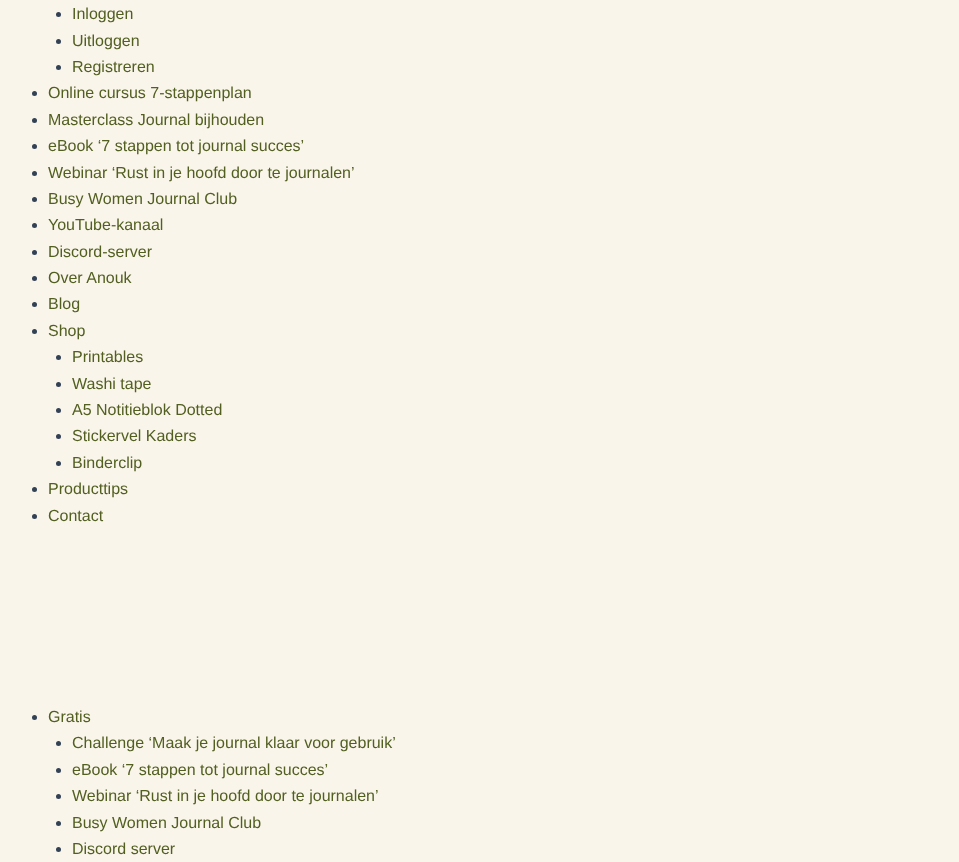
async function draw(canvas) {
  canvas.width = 959
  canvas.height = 862
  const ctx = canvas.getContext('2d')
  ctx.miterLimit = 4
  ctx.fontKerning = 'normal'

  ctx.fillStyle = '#f9f5ea'
  ctx.fillRect(0, 0, 959, 862)
  ctx.fillStyle = '#334155'
  ctx.beginPath()
  ctx.arc(58.5, 14.5, 2.5, 0, 2 * Math.PI)
  ctx.fill()
  ctx.font = '16px Liberation Sans'
  ctx.fillStyle = '#525f20'
  ctx.fillText('Inloggen', 72, 19)
  ctx.fillStyle = '#334155'
  ctx.beginPath()
  ctx.arc(58.5, 41.5, 2.5, 0, 2 * Math.PI)
  ctx.fill()
  ctx.fillStyle = '#525f20'
  ctx.fillText('Uitloggen', 72, 46)
  ctx.fillStyle = '#334155'
  ctx.beginPath()
  ctx.arc(58.5, 67.5, 2.5, 0, 2 * Math.PI)
  ctx.fill()
  ctx.fillStyle = '#525f20'
  ctx.fillText('Registreren', 72, 72)
  ctx.fillStyle = '#334155'
  ctx.beginPath()
  ctx.arc(34.5, 93.5, 2.5, 0, 2 * Math.PI)
  ctx.fill()
  ctx.fillStyle = '#525f20'
  ctx.fillText('Online cursus 7-stappenplan', 48, 98)
  ctx.fillStyle = '#334155'
  ctx.beginPath()
  ctx.arc(34.5, 120.5, 2.5, 0, 2 * Math.PI)
  ctx.fill()
  ctx.fillStyle = '#525f20'
  ctx.fillText('Masterclass Journal bijhouden', 48, 125)
  ctx.fillStyle = '#334155'
  ctx.beginPath()
  ctx.arc(34.5, 146.5, 2.5, 0, 2 * Math.PI)
  ctx.fill()
  ctx.fillStyle = '#525f20'
  ctx.fillText('eBook ‘7 stappen tot journal succes’', 48, 151)
  ctx.fillStyle = '#334155'
  ctx.beginPath()
  ctx.arc(34.5, 173.5, 2.5, 0, 2 * Math.PI)
  ctx.fill()
  ctx.fillStyle = '#525f20'
  ctx.fillText('Webinar ‘Rust in je hoofd door te journalen’', 48, 178)
  ctx.fillStyle = '#334155'
  ctx.beginPath()
  ctx.arc(34.5, 199.5, 2.5, 0, 2 * Math.PI)
  ctx.fill()
  ctx.fillStyle = '#525f20'
  ctx.fillText('Busy Women Journal Club', 48, 204)
  ctx.fillStyle = '#334155'
  ctx.beginPath()
  ctx.arc(34.5, 225.5, 2.5, 0, 2 * Math.PI)
  ctx.fill()
  ctx.fillStyle = '#525f20'
  ctx.fillText('YouTube-kanaal', 48, 230)
  ctx.fillStyle = '#334155'
  ctx.beginPath()
  ctx.arc(34.5, 252.5, 2.5, 0, 2 * Math.PI)
  ctx.fill()
  ctx.fillStyle = '#525f20'
  ctx.fillText('Discord-server', 48, 257)
  ctx.fillStyle = '#334155'
  ctx.beginPath()
  ctx.arc(34.5, 278.5, 2.5, 0, 2 * Math.PI)
  ctx.fill()
  ctx.fillStyle = '#525f20'
  ctx.fillText('Over Anouk', 48, 283)
  ctx.fillStyle = '#334155'
  ctx.beginPath()
  ctx.arc(34.5, 304.5, 2.5, 0, 2 * Math.PI)
  ctx.fill()
  ctx.fillStyle = '#525f20'
  ctx.fillText('Blog', 48, 309)
  ctx.fillStyle = '#334155'
  ctx.beginPath()
  ctx.arc(34.5, 331.5, 2.5, 0, 2 * Math.PI)
  ctx.fill()
  ctx.fillStyle = '#525f20'
  ctx.fillText('Shop', 48, 336)
  ctx.fillStyle = '#334155'
  ctx.beginPath()
  ctx.arc(58.5, 357.5, 2.5, 0, 2 * Math.PI)
  ctx.fill()
  ctx.fillStyle = '#525f20'
  ctx.fillText('Printables', 72, 362)
  ctx.fillStyle = '#334155'
  ctx.beginPath()
  ctx.arc(58.5, 384.5, 2.5, 0, 2 * Math.PI)
  ctx.fill()
  ctx.fillStyle = '#525f20'
  ctx.fillText('Washi tape', 72, 389)
  ctx.fillStyle = '#334155'
  ctx.beginPath()
  ctx.arc(58.5, 410.5, 2.5, 0, 2 * Math.PI)
  ctx.fill()
  ctx.fillStyle = '#525f20'
  ctx.fillText('A5 Notitieblok Dotted', 72, 415)
  ctx.fillStyle = '#334155'
  ctx.beginPath()
  ctx.arc(58.5, 436.5, 2.5, 0, 2 * Math.PI)
  ctx.fill()
  ctx.fillStyle = '#525f20'
  ctx.fillText('Stickervel Kaders', 72, 441)
  ctx.fillStyle = '#334155'
  ctx.beginPath()
  ctx.arc(58.5, 463.5, 2.5, 0, 2 * Math.PI)
  ctx.fill()
  ctx.fillStyle = '#525f20'
  ctx.fillText('Binderclip', 72, 468)
  ctx.fillStyle = '#334155'
  ctx.beginPath()
  ctx.arc(34.5, 489.5, 2.5, 0, 2 * Math.PI)
  ctx.fill()
  ctx.fillStyle = '#525f20'
  ctx.fillText('Producttips', 48, 494)
  ctx.fillStyle = '#334155'
  ctx.beginPath()
  ctx.arc(34.5, 516.5, 2.5, 0, 2 * Math.PI)
  ctx.fill()
  ctx.fillStyle = '#525f20'
  ctx.fillText('Contact', 48, 521)
  ctx.fillStyle = '#334155'
  ctx.beginPath()
  ctx.arc(34.5, 717.5, 2.5, 0, 2 * Math.PI)
  ctx.fill()
  ctx.fillStyle = '#525f20'
  ctx.fillText('Gratis', 48, 722)
  ctx.fillStyle = '#334155'
  ctx.beginPath()
  ctx.arc(58.5, 743.5, 2.5, 0, 2 * Math.PI)
  ctx.fill()
  ctx.fillStyle = '#525f20'
  ctx.fillText('Challenge ‘Maak je journal klaar voor gebruik’', 72, 748)
  ctx.fillStyle = '#334155'
  ctx.beginPath()
  ctx.arc(58.5, 770.5, 2.5, 0, 2 * Math.PI)
  ctx.fill()
  ctx.fillStyle = '#525f20'
  ctx.fillText('eBook ‘7 stappen tot journal succes’', 72, 775)
  ctx.fillStyle = '#334155'
  ctx.beginPath()
  ctx.arc(58.5, 796.5, 2.5, 0, 2 * Math.PI)
  ctx.fill()
  ctx.fillStyle = '#525f20'
  ctx.fillText('Webinar ‘Rust in je hoofd door te journalen’', 72, 801)
  ctx.fillStyle = '#334155'
  ctx.beginPath()
  ctx.arc(58.5, 823.5, 2.5, 0, 2 * Math.PI)
  ctx.fill()
  ctx.fillStyle = '#525f20'
  ctx.fillText('Busy Women Journal Club', 72, 828)
  ctx.fillStyle = '#334155'
  ctx.beginPath()
  ctx.arc(58.5, 849.5, 2.5, 0, 2 * Math.PI)
  ctx.fill()
  ctx.fillStyle = '#525f20'
  ctx.fillText('Discord server', 72, 854)
}

draw(document.querySelector('canvas'))
